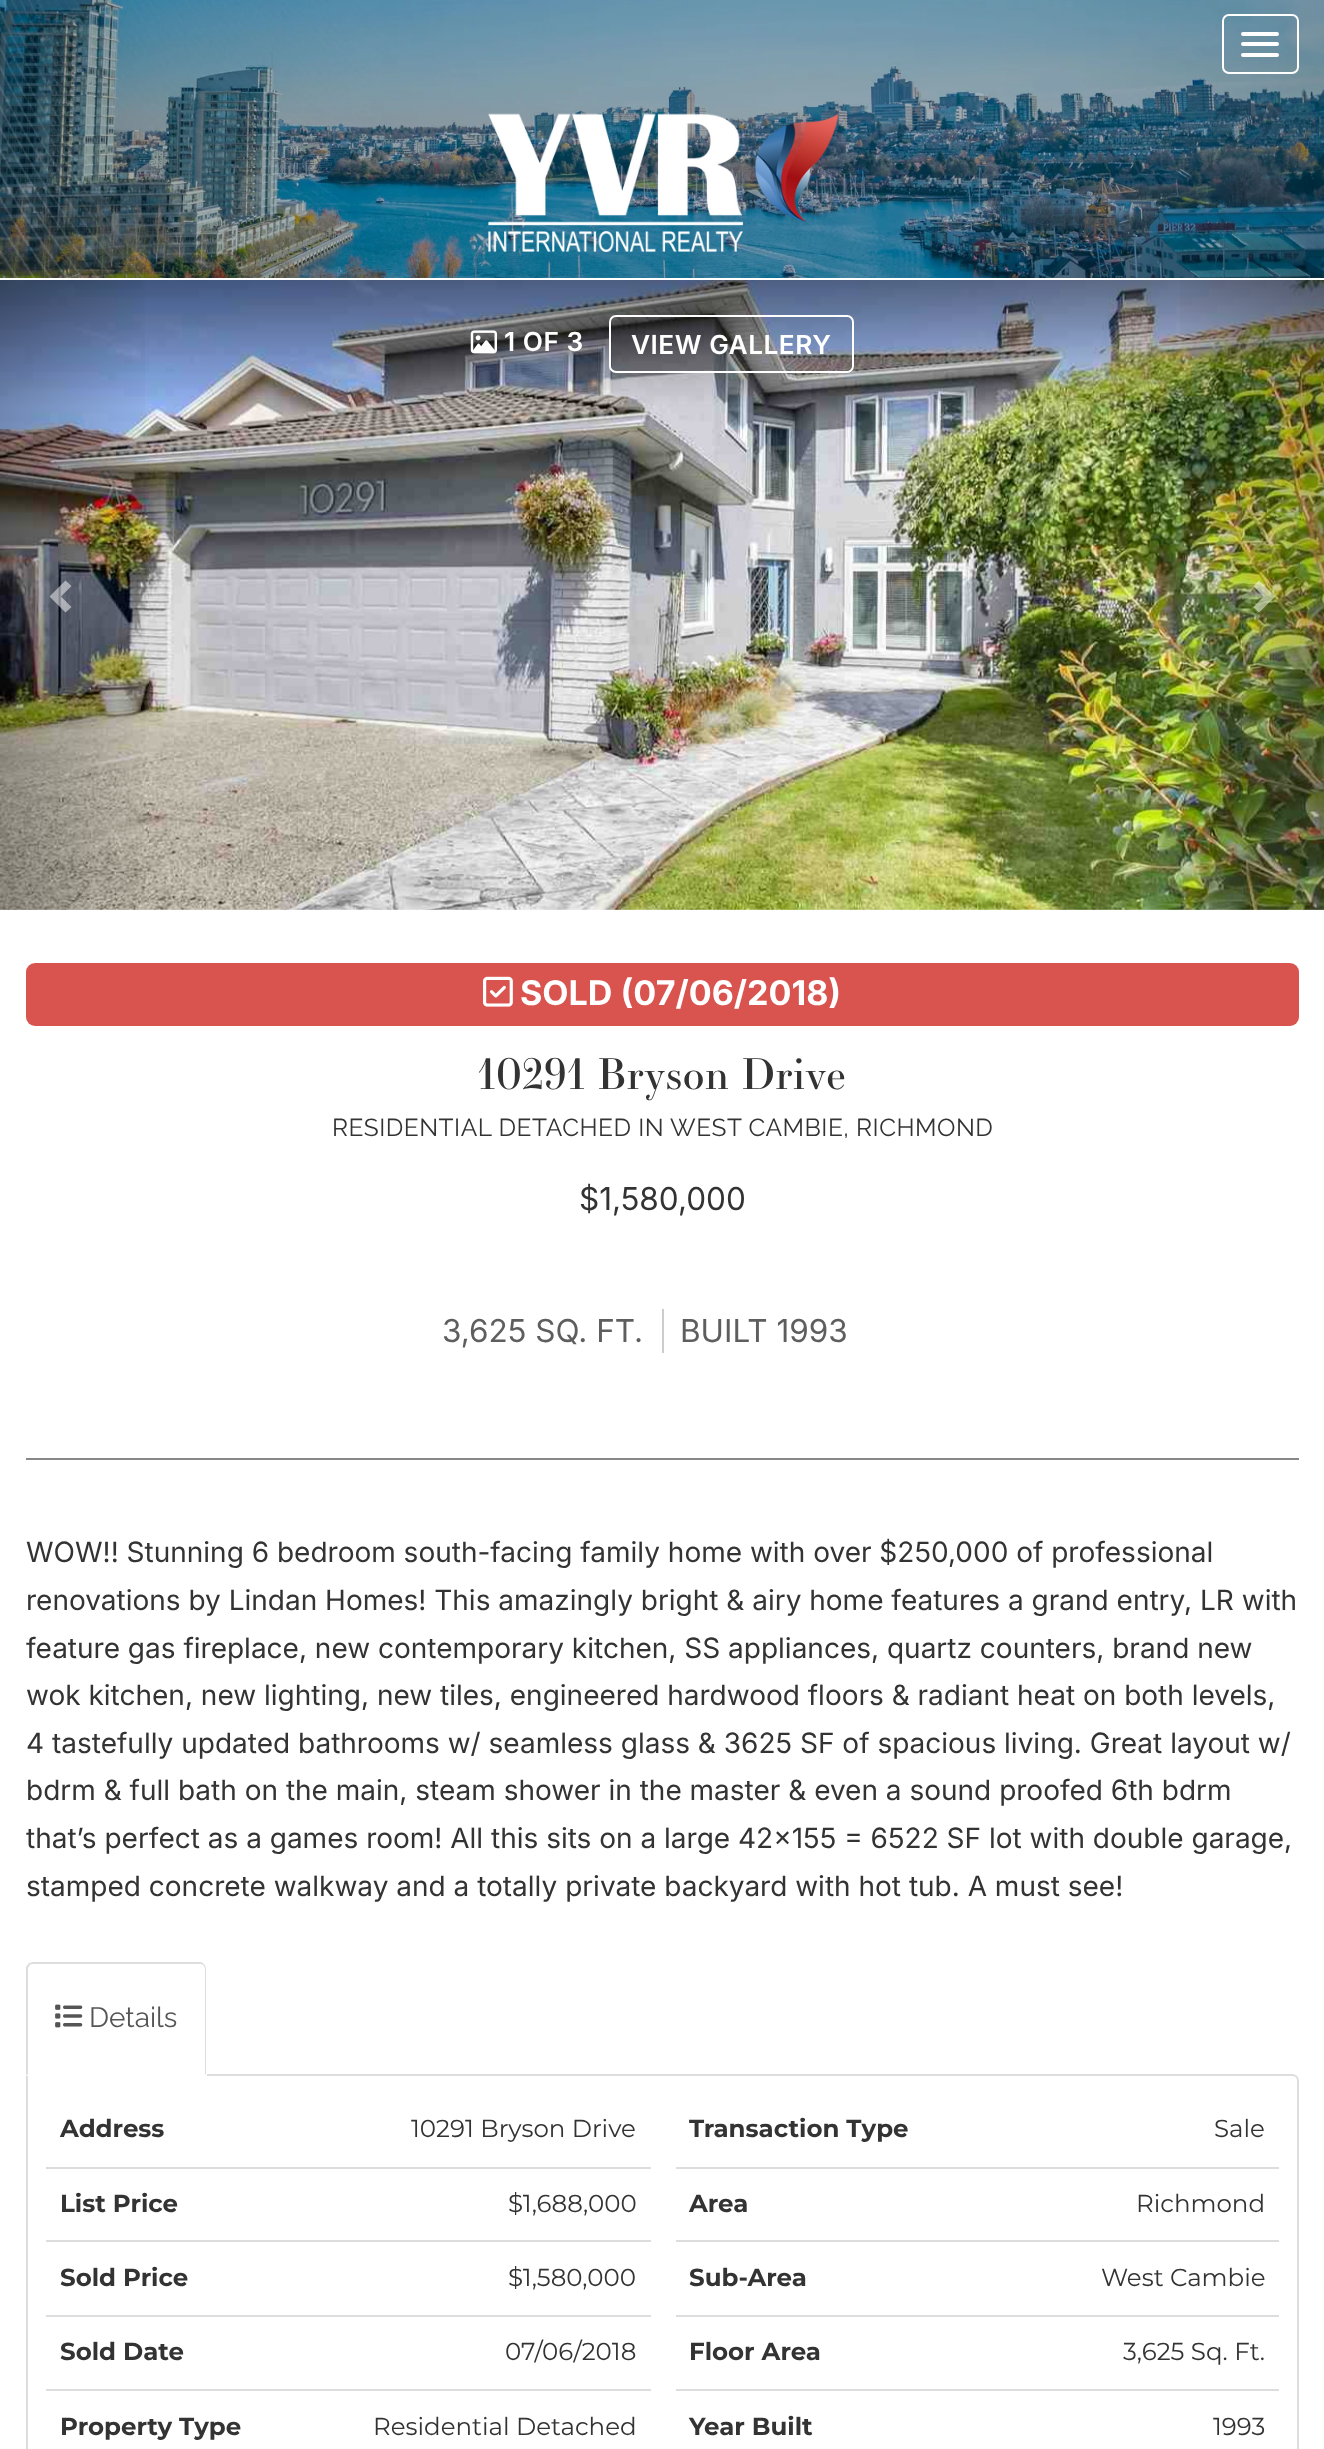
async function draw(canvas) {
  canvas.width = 1324
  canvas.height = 2449
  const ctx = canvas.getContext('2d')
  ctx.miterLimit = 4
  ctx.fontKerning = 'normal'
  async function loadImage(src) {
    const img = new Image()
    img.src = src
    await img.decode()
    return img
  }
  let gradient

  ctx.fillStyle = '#fff'
  ctx.fillRect(0, 0, 1324, 2449)
  ctx.drawImage(await loadImage('image0.png'), 0, 0, 1324, 278)
  ctx.beginPath()
  ctx.roundRect(1223, 15, 75, 58, 6)
  ctx.strokeStyle = '#fff'
  ctx.lineWidth = 2
  ctx.stroke()
  ctx.beginPath()
  ctx.roundRect(1241, 32, 38, 4, 2)
  ctx.fill()
  ctx.beginPath()
  ctx.roundRect(1241, 42, 38, 4, 2)
  ctx.fill()
  ctx.beginPath()
  ctx.roundRect(1241, 53, 38, 4, 2)
  ctx.fill()
  ctx.drawImage(await loadImage('image1.png'), 488, 113, 351, 139)
  ctx.drawImage(await loadImage('image2.png'), 0, 280, 1324, 630)
  gradient = ctx.createLinearGradient(0, 595, 159, 595)
  gradient.addColorStop(0, '#00000040')
  gradient.addColorStop(1, '#00000000')
  ctx.fillStyle = gradient
  ctx.fillRect(0, 280, 145, 630)
  ctx.fillStyle = '#ffffff80'
  ctx.beginPath()
  ctx.moveTo(71.5, 586)
  ctx.lineTo(61, 596.5)
  ctx.lineTo(71.5, 607)
  ctx.lineTo(65.5, 612.5)
  ctx.lineTo(49.5, 596.5)
  ctx.lineTo(65.5, 580.5)
  ctx.closePath()
  ctx.fill()
  ctx.drawImage(await loadImage('image3.png'), 470, 330, 27, 24)
  ctx.letterSpacing = '0.5px'
  ctx.font = '600 26.25px Inter'
  ctx.fillStyle = '#fff'
  ctx.fillText('1 OF 3', 504, 351)
  ctx.beginPath()
  ctx.roundRect(610, 316, 243, 56, 6)
  ctx.stroke()
  ctx.fillText('VIEW GALLERY', 631, 354)
  gradient = ctx.createLinearGradient(1166, 595, 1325, 595)
  gradient.addColorStop(0, '#00000000')
  gradient.addColorStop(1, '#00000040')
  ctx.fillStyle = gradient
  ctx.fillRect(1180, 280, 144, 630)
  ctx.fillStyle = '#ffffff80'
  ctx.beginPath()
  ctx.moveTo(1275.5, 596.5)
  ctx.lineTo(1259, 612.5)
  ctx.lineTo(1253.5, 607)
  ctx.lineTo(1263.5, 596.5)
  ctx.lineTo(1253.5, 586)
  ctx.lineTo(1259, 580.5)
  ctx.closePath()
  ctx.fill()
  ctx.fillStyle = '#d9534f'
  ctx.beginPath()
  ctx.roundRect(26, 963, 1273, 63, 9)
  ctx.fill()
  ctx.drawImage(await loadImage('image4.png'), 483, 976, 30, 31)
  ctx.letterSpacing = '0px'
  ctx.font = 'bold 34.1px Inter'
  ctx.fillStyle = '#fff'
  ctx.fillText('SOLD (07/06/2018)', 520, 1005)
  ctx.letterSpacing = '0.8px'
  ctx.font = '42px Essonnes'
  ctx.fillStyle = '#333'
  ctx.fillText('10291 Bryson Drive', 478, 1089)
  ctx.letterSpacing = '0.5px'
  ctx.font = '24.5px Raleway'
  ctx.fillText('RESIDENTIAL DETACHED IN WEST CAMBIE, RICHMOND', 332, 1136)
  ctx.letterSpacing = '0px'
  ctx.font = '31.5px Inter'
  ctx.fillText('$1,580,000', 579, 1210)
  ctx.fillStyle = '#888'
  ctx.fillRect(26, 1458, 1273, 2)
  ctx.fillStyle = '#ccc'
  ctx.fillRect(662, 1309, 2, 44)
  ctx.fillStyle = '#5e5e5e'
  ctx.fillText('3,625 SQ. FT.', 442, 1342)
  ctx.fillText('BUILT 1993', 680, 1342)
  ctx.font = '28px Inter'
  ctx.fillStyle = '#333'
  ctx.fillText('WOW!! Stunning 6 bedroom south-facing family home with over $250,000 of professional', 26, 1562)
  ctx.fillText('renovations by Lindan Homes! This amazingly bright & airy home features a grand entry, LR with', 26, 1610)
  ctx.fillText('feature gas fireplace, new contemporary kitchen, SS appliances, quartz counters, brand new', 26, 1658)
  ctx.fillText('wok kitchen, new lighting, new tiles, engineered hardwood floors & radiant heat on both levels,', 26, 1705)
  ctx.fillText('4 tastefully updated bathrooms w/ seamless glass & 3625 SF of spacious living. Great layout w/', 26, 1753)
  ctx.fillText('bdrm & full bath on the main, steam shower in the master & even a sound proofed 6th bdrm', 26, 1800)
  ctx.fillText('that’s perfect as a games room! All this sits on a large 42x155 = 6522 SF lot with double garage,', 26, 1848)
  ctx.fillText('stamped concrete walkway and a totally private backyard with hot tub. A must see!', 26, 1896)
  ctx.beginPath()
  ctx.moveTo(27, 2075)
  ctx.lineTo(1292, 2075)
  ctx.bezierCurveTo(1295.5, 2075, 1298, 2077.5, 1298, 2081)
  ctx.lineTo(1298, 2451)
  ctx.bezierCurveTo(1298, 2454.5, 1295.5, 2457, 1292, 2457)
  ctx.lineTo(33, 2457)
  ctx.bezierCurveTo(29.5, 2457, 27, 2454.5, 27, 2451)
  ctx.closePath()
  ctx.strokeStyle = '#ddd'
  ctx.stroke()
  ctx.fillStyle = '#fff'
  ctx.beginPath()
  ctx.roundRect(26, 1962, 181, 114, [7, 7, 0, 0])
  ctx.fill()
  ctx.fillStyle = '#ddd'
  ctx.beginPath()
  ctx.moveTo(33, 1962)
  ctx.bezierCurveTo(31, 1962, 29, 1963, 28, 1964)
  ctx.lineTo(30, 1965)
  ctx.bezierCurveTo(30, 1964, 32, 1964, 33, 1964)
  ctx.lineTo(200, 1964)
  ctx.bezierCurveTo(201, 1964, 202, 1964, 203, 1965)
  ctx.lineTo(204, 1964)
  ctx.bezierCurveTo(203, 1963, 202, 1962, 200, 1962)
  ctx.closePath()
  ctx.fill()
  ctx.beginPath()
  ctx.moveTo(206, 2075)
  ctx.lineTo(206, 1969)
  ctx.bezierCurveTo(206, 1967, 205, 1965, 204, 1964)
  ctx.lineTo(203, 1965)
  ctx.bezierCurveTo(204, 1966, 205, 1967, 205, 1969)
  ctx.lineTo(205, 2074)
  ctx.closePath()
  ctx.fill()
  ctx.beginPath()
  ctx.moveTo(26, 2076)
  ctx.lineTo(28, 2074)
  ctx.lineTo(28, 1968)
  ctx.lineTo(30, 1965)
  ctx.lineTo(28, 1964)
  ctx.lineTo(26, 1967)
  ctx.closePath()
  ctx.fill()
  ctx.drawImage(await loadImage('image5.png'), 55, 2004, 28, 24)
  ctx.font = '28px Raleway'
  ctx.fillStyle = '#555'
  ctx.fillText('Details', 89, 2027)
  ctx.fillStyle = '#ddd'
  ctx.fillRect(46, 2167, 605, 2)
  ctx.font = 'bold 24.5px Montserrat'
  ctx.fillStyle = '#333'
  ctx.fillText('Address', 60, 2137)
  ctx.font = '24.5px Montserrat'
  ctx.fillText('10291 Bryson Drive', 411, 2137)
  ctx.fillStyle = '#ddd'
  ctx.fillRect(676, 2167, 603, 2)
  ctx.font = 'bold 24.5px Montserrat'
  ctx.fillStyle = '#333'
  ctx.fillText('Transaction Type', 689, 2137)
  ctx.font = '24.5px Montserrat'
  ctx.fillText('Sale', 1214, 2137)
  ctx.fillStyle = '#ddd'
  ctx.fillRect(46, 2240, 605, 2)
  ctx.font = 'bold 24.5px Montserrat'
  ctx.fillStyle = '#333'
  ctx.fillText('List Price', 60, 2212)
  ctx.font = '24.5px Montserrat'
  ctx.fillText('$1,688,000', 508, 2212)
  ctx.fillStyle = '#ddd'
  ctx.fillRect(676, 2240, 603, 2)
  ctx.font = 'bold 24.5px Montserrat'
  ctx.fillStyle = '#333'
  ctx.fillText('Area', 689, 2212)
  ctx.font = '24.5px Montserrat'
  ctx.fillText('Richmond', 1136, 2212)
  ctx.fillStyle = '#ddd'
  ctx.fillRect(46, 2315, 605, 2)
  ctx.font = 'bold 24.5px Montserrat'
  ctx.fillStyle = '#333'
  ctx.fillText('Sold Price', 60, 2286)
  ctx.font = '24.5px Montserrat'
  ctx.fillText('$1,580,000', 508, 2286)
  ctx.fillStyle = '#ddd'
  ctx.fillRect(676, 2315, 603, 2)
  ctx.font = 'bold 24.5px Montserrat'
  ctx.fillStyle = '#333'
  ctx.fillText('Sub-Area', 689, 2286)
  ctx.font = '24.5px Montserrat'
  ctx.fillText('West Cambie', 1101, 2286)
  ctx.fillStyle = '#ddd'
  ctx.fillRect(46, 2389, 605, 2)
  ctx.font = 'bold 24.5px Montserrat'
  ctx.fillStyle = '#333'
  ctx.fillText('Sold Date', 60, 2360)
  ctx.font = '24.5px Montserrat'
  ctx.fillText('07/06/2018', 505, 2360)
  ctx.fillStyle = '#ddd'
  ctx.fillRect(676, 2389, 603, 2)
  ctx.font = 'bold 24.5px Montserrat'
  ctx.fillStyle = '#333'
  ctx.fillText('Floor Area', 689, 2360)
  ctx.font = '24.5px Montserrat'
  ctx.fillText('3,625 Sq. Ft.', 1123, 2360)
  ctx.font = 'bold 24.5px Montserrat'
  ctx.fillText('Property Type', 60, 2435)
  ctx.font = '24.5px Montserrat'
  ctx.fillText('Residential Detached', 373, 2435)
  ctx.font = 'bold 24.5px Montserrat'
  ctx.fillText('Year Built', 689, 2435)
  ctx.font = '24.5px Montserrat'
  ctx.fillText('1993', 1213, 2435)
}

draw(document.querySelector('canvas'))
